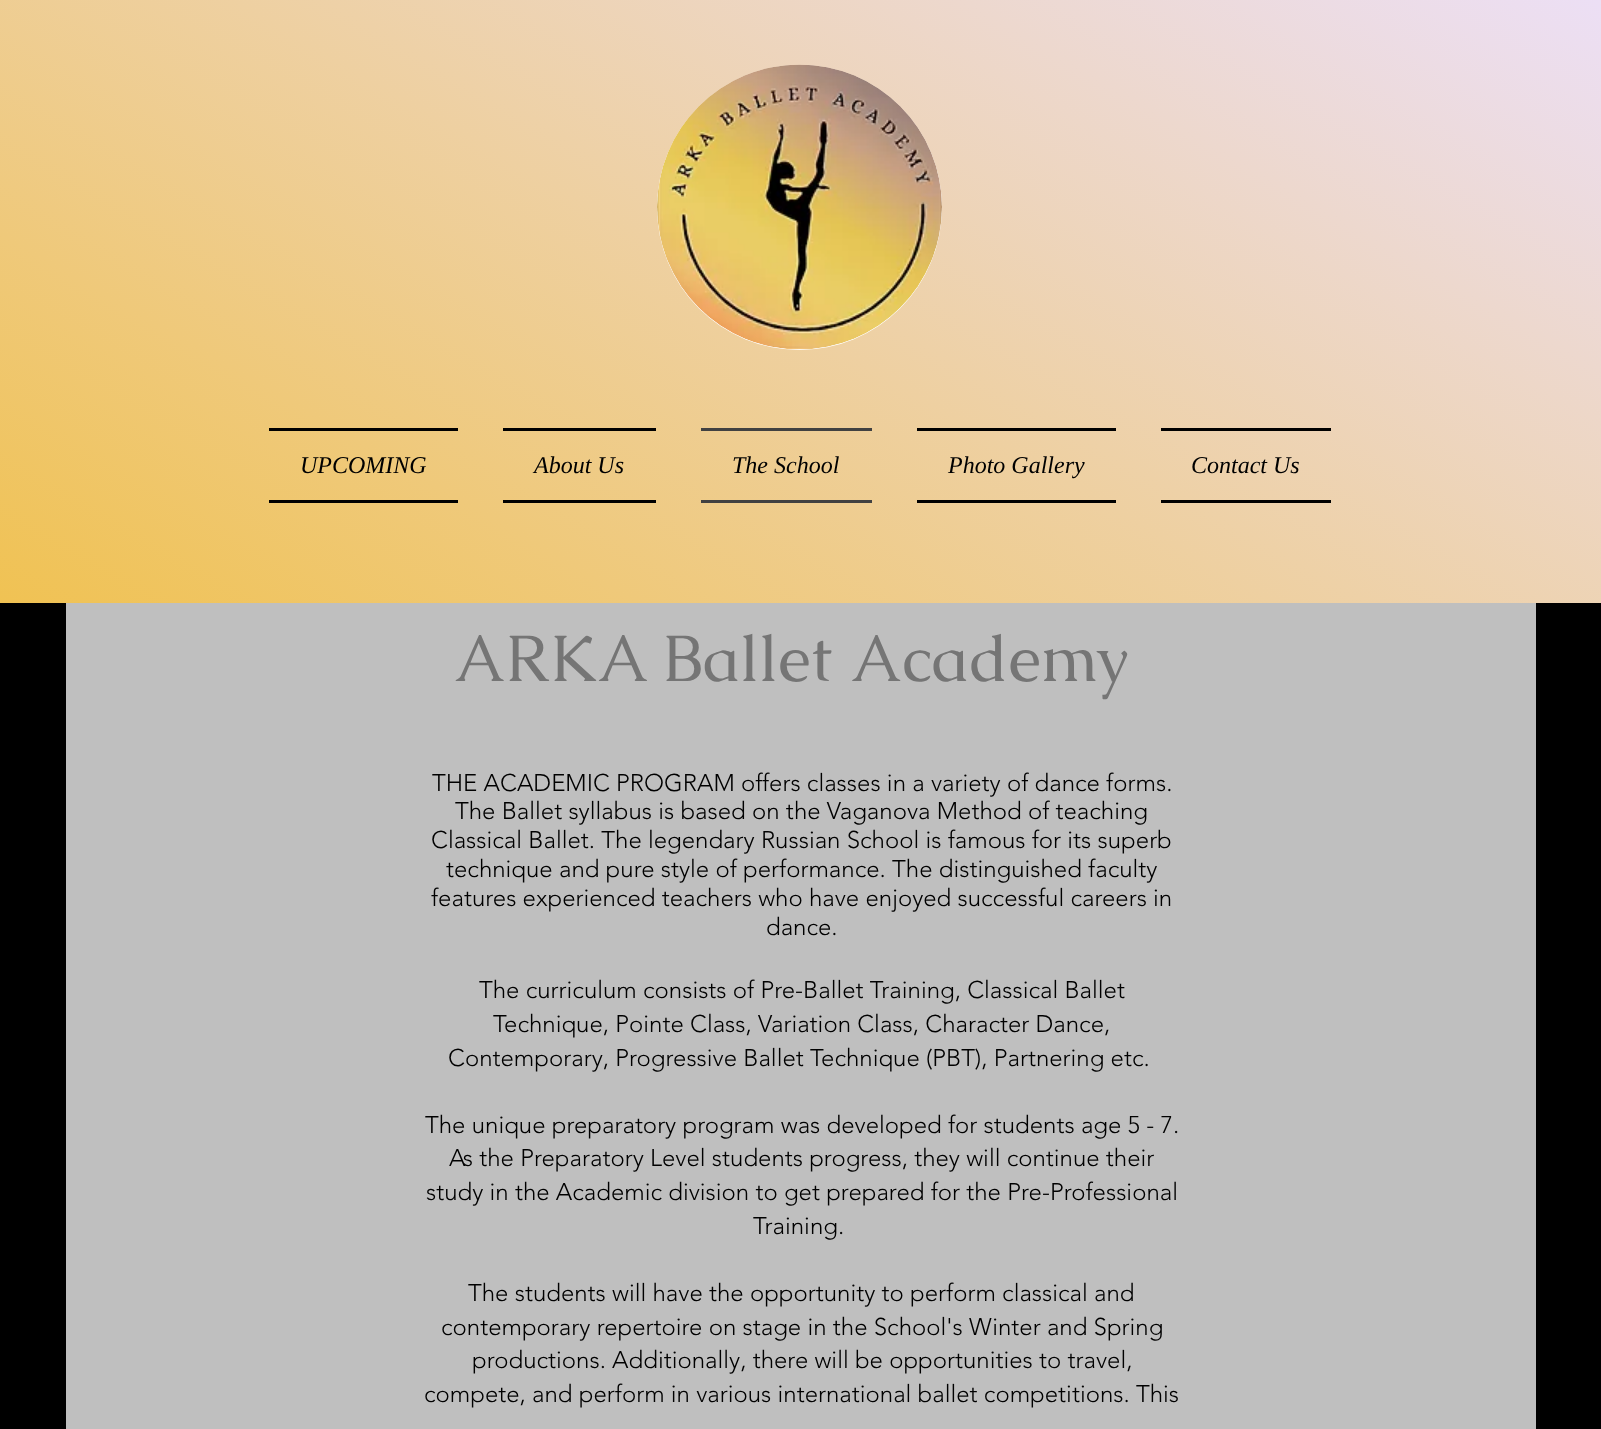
async function draw(canvas) {
  canvas.width = 1601
  canvas.height = 1429
  const ctx = canvas.getContext('2d')
  ctx.miterLimit = 4
  ctx.fontKerning = 'normal'
  async function loadImage(src) {
    const img = new Image()
    img.src = src
    await img.decode()
    return img
  }
  let gradient

  ctx.fillStyle = '#000'
  ctx.fillRect(0, 0, 1601, 1429)
  gradient = ctx.createLinearGradient(470, 874, 1132, -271)
  gradient.addColorStop(0, '#f0c253')
  gradient.addColorStop(1, '#ecdff5')
  ctx.fillStyle = gradient
  ctx.fillRect(0, 0, 1601, 603)
  ctx.fillStyle = '#fff'
  ctx.beginPath()
  ctx.arc(799.5, 207.5, 142.5, 0, 2 * Math.PI)
  ctx.fill()
  ctx.drawImage(await loadImage('image0.png'), 657, 64, 285, 286)
  ctx.fillStyle = '#000'
  ctx.fillRect(269, 428, 189, 3)
  ctx.fillRect(269, 500, 189, 3)
  ctx.font = 'italic 24px Liberation Serif'
  ctx.fillText('UPCOMING', 300, 473)
  ctx.fillRect(503, 428, 153, 3)
  ctx.fillRect(503, 500, 153, 3)
  ctx.fillText('About Us', 534, 473)
  ctx.fillStyle = '#414141'
  ctx.fillRect(701, 428, 171, 3)
  ctx.fillRect(701, 500, 171, 3)
  ctx.fillStyle = '#000'
  ctx.fillText('The School', 732, 473)
  ctx.fillRect(917, 428, 199, 3)
  ctx.fillRect(917, 500, 199, 3)
  ctx.fillText('Photo Gallery', 948, 473)
  ctx.fillRect(1161, 428, 170, 3)
  ctx.fillRect(1161, 500, 170, 3)
  ctx.fillText('Contact Us', 1191, 473)
  ctx.fillStyle = '#bfbfbf'
  ctx.fillRect(66, 603, 1470, 826)
  ctx.font = '66px Caudex'
  ctx.fillStyle = '#757575'
  ctx.fillText('ARKA Ballet Academy', 454, 681)
  ctx.font = '300 24px "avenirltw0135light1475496"'
  ctx.fillStyle = '#000'
  ctx.fillText('THE ACADEMIC PROGRAM offers classes in a variety of dance forms.', 432, 791)
  ctx.fillText('The Ballet syllabus is based on the Vaganova Method of teaching', 455, 819)
  ctx.fillText('Classical Ballet. The legendary Russian School is famous for its superb', 431, 848)
  ctx.fillText('technique and pure style of performance. The distinguished faculty', 446, 877)
  ctx.fillText('features experienced teachers who have enjoyed successful careers in', 431, 906)
  ctx.fillText('dance.', 766, 935)
  ctx.fillText('The curriculum consists of Pre-Ballet Training, Classical Ballet', 479, 998)
  ctx.fillText('Technique, Pointe Class, Variation Class, Character Dance,', 493, 1032)
  ctx.fillText('Contemporary, Progressive Ballet Technique (PBT), Partnering etc.', 448, 1066)
  ctx.fillText('The unique preparatory program was developed for students age 5 - 7.', 425, 1133)
  ctx.fillText('As the Preparatory Level students progress, they will continue their', 449, 1166)
  ctx.fillText('study in the Academic division to get prepared for the Pre-Professional', 426, 1200)
  ctx.fillText('Training.', 753, 1234)
  ctx.fillText('The students will have the opportunity to perform classical and', 468, 1301)
  ctx.fillText('contemporary repertoire on stage in the School\'s Winter and Spring', 441, 1335)
  ctx.fillText('productions. Additionally, there will be opportunities to travel,', 472, 1368)
  ctx.fillText('compete, and perform in various international ballet competitions. This', 424, 1402)
}

draw(document.querySelector('canvas'))
